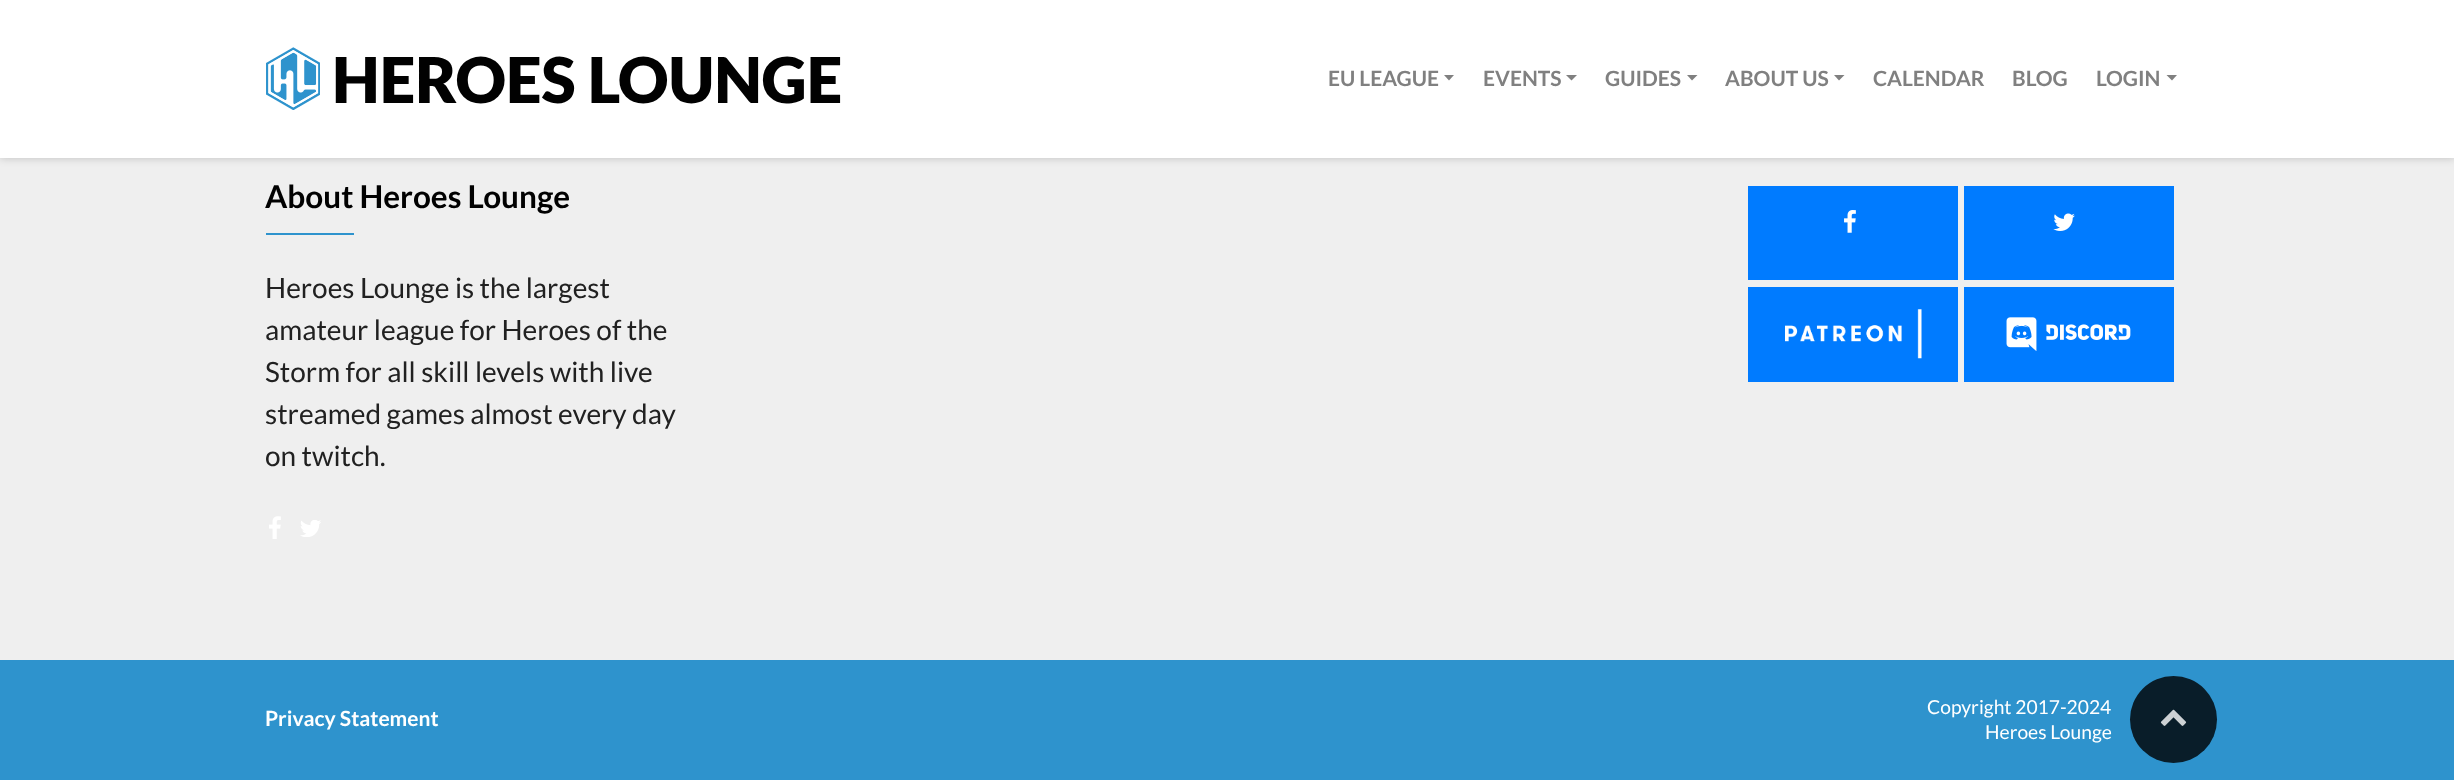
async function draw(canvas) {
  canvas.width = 2454
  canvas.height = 780
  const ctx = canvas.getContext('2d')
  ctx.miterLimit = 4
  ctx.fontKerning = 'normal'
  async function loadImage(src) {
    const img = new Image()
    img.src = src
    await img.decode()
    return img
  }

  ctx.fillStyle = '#efefef'
  ctx.fillRect(0, 0, 2454, 780)
  ctx.fillStyle = '#00000033'
  ctx.filter = 'blur(4.5px)'
  ctx.beginPath()
  ctx.rect(0, 0, 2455, 158)
  ctx.fill()
  ctx.filter = 'none'
  ctx.fillStyle = '#fff'
  ctx.fillRect(0, 0, 2454, 158)
  ctx.drawImage(await loadImage('image0.png'), 266, 47, 54, 63)
  ctx.font = '900 63px Lato'
  ctx.fillStyle = '#010101'
  ctx.fillText('HEROES LOUNGE', 332, 103)
  ctx.font = 'bold 21px Lato'
  ctx.fillStyle = '#808080'
  ctx.fillText('EU LEAGUE', 1328, 86)
  ctx.beginPath()
  ctx.moveTo(1444, 75)
  ctx.lineTo(1454, 75)
  ctx.lineTo(1449, 80.5)
  ctx.closePath()
  ctx.fill()
  ctx.fillText('EVENTS', 1483, 86)
  ctx.beginPath()
  ctx.moveTo(1566, 75)
  ctx.lineTo(1577, 75)
  ctx.lineTo(1571.5, 80.5)
  ctx.closePath()
  ctx.fill()
  ctx.fillText('GUIDES', 1605, 86)
  ctx.beginPath()
  ctx.moveTo(1687, 75)
  ctx.lineTo(1697.5, 75)
  ctx.lineTo(1692, 80.5)
  ctx.closePath()
  ctx.fill()
  ctx.fillText('ABOUT US', 1725, 86)
  ctx.beginPath()
  ctx.moveTo(1834, 75)
  ctx.lineTo(1844.5, 75)
  ctx.lineTo(1839, 80.5)
  ctx.closePath()
  ctx.fill()
  ctx.fillText('CALENDAR', 1873, 86)
  ctx.fillText('BLOG', 2012, 86)
  ctx.fillText('LOGIN', 2096, 86)
  ctx.beginPath()
  ctx.moveTo(2166.5, 75)
  ctx.lineTo(2177, 75)
  ctx.lineTo(2172, 80.5)
  ctx.closePath()
  ctx.fill()
  ctx.font = 'bold 31.5px Lato'
  ctx.fillStyle = '#010101'
  ctx.fillText('About Heroes Lounge', 265, 208)
  ctx.fillStyle = '#2e93cd'
  ctx.fillRect(266, 233, 88, 2)
  ctx.font = '28px Lato'
  ctx.fillStyle = '#212121'
  ctx.fillText('Heroes Lounge is the largest', 265, 298)
  ctx.fillText('amateur league for Heroes of the', 265, 340)
  ctx.fillText('Storm for all skill levels with live', 265, 382)
  ctx.fillText('streamed games almost every day', 265, 424)
  ctx.fillText('on twitch.', 265, 466)
  ctx.drawImage(await loadImage('image1.png'), 269, 516, 12, 23)
  ctx.drawImage(await loadImage('image2.png'), 300, 520, 21, 17)
  ctx.fillStyle = '#007bff'
  ctx.fillRect(1748, 186, 210, 94)
  ctx.drawImage(await loadImage('image3.png'), 1844, 210, 12, 23)
  ctx.fillRect(1964, 186, 210, 94)
  ctx.drawImage(await loadImage('image4.png'), 2053, 213, 22, 18)
  ctx.fillRect(1748, 287, 210, 95)
  ctx.drawImage(await loadImage('image5.png'), 1785, 309, 137, 50)
  ctx.fillRect(1964, 287, 210, 95)
  ctx.drawImage(await loadImage('image6.png'), 2006, 317, 125, 34)
  ctx.fillStyle = '#2e93cd'
  ctx.fillRect(0, 660, 2454, 120)
  ctx.font = 'bold 21px Lato'
  ctx.fillStyle = '#fff'
  ctx.fillText('Privacy Statement', 265, 726)
  ctx.font = '19.25px Lato'
  ctx.fillText('Copyright 2017-2024', 1927, 714)
  ctx.fillText('Heroes Lounge', 1985, 739)
  ctx.fillStyle = '#091d29'
  ctx.beginPath()
  ctx.arc(2173.5, 719.5, 43.5, 0, 2 * Math.PI)
  ctx.fill()
  ctx.drawImage(await loadImage('image7.png'), 2160, 709, 27, 17)
}

draw(document.querySelector('canvas'))
